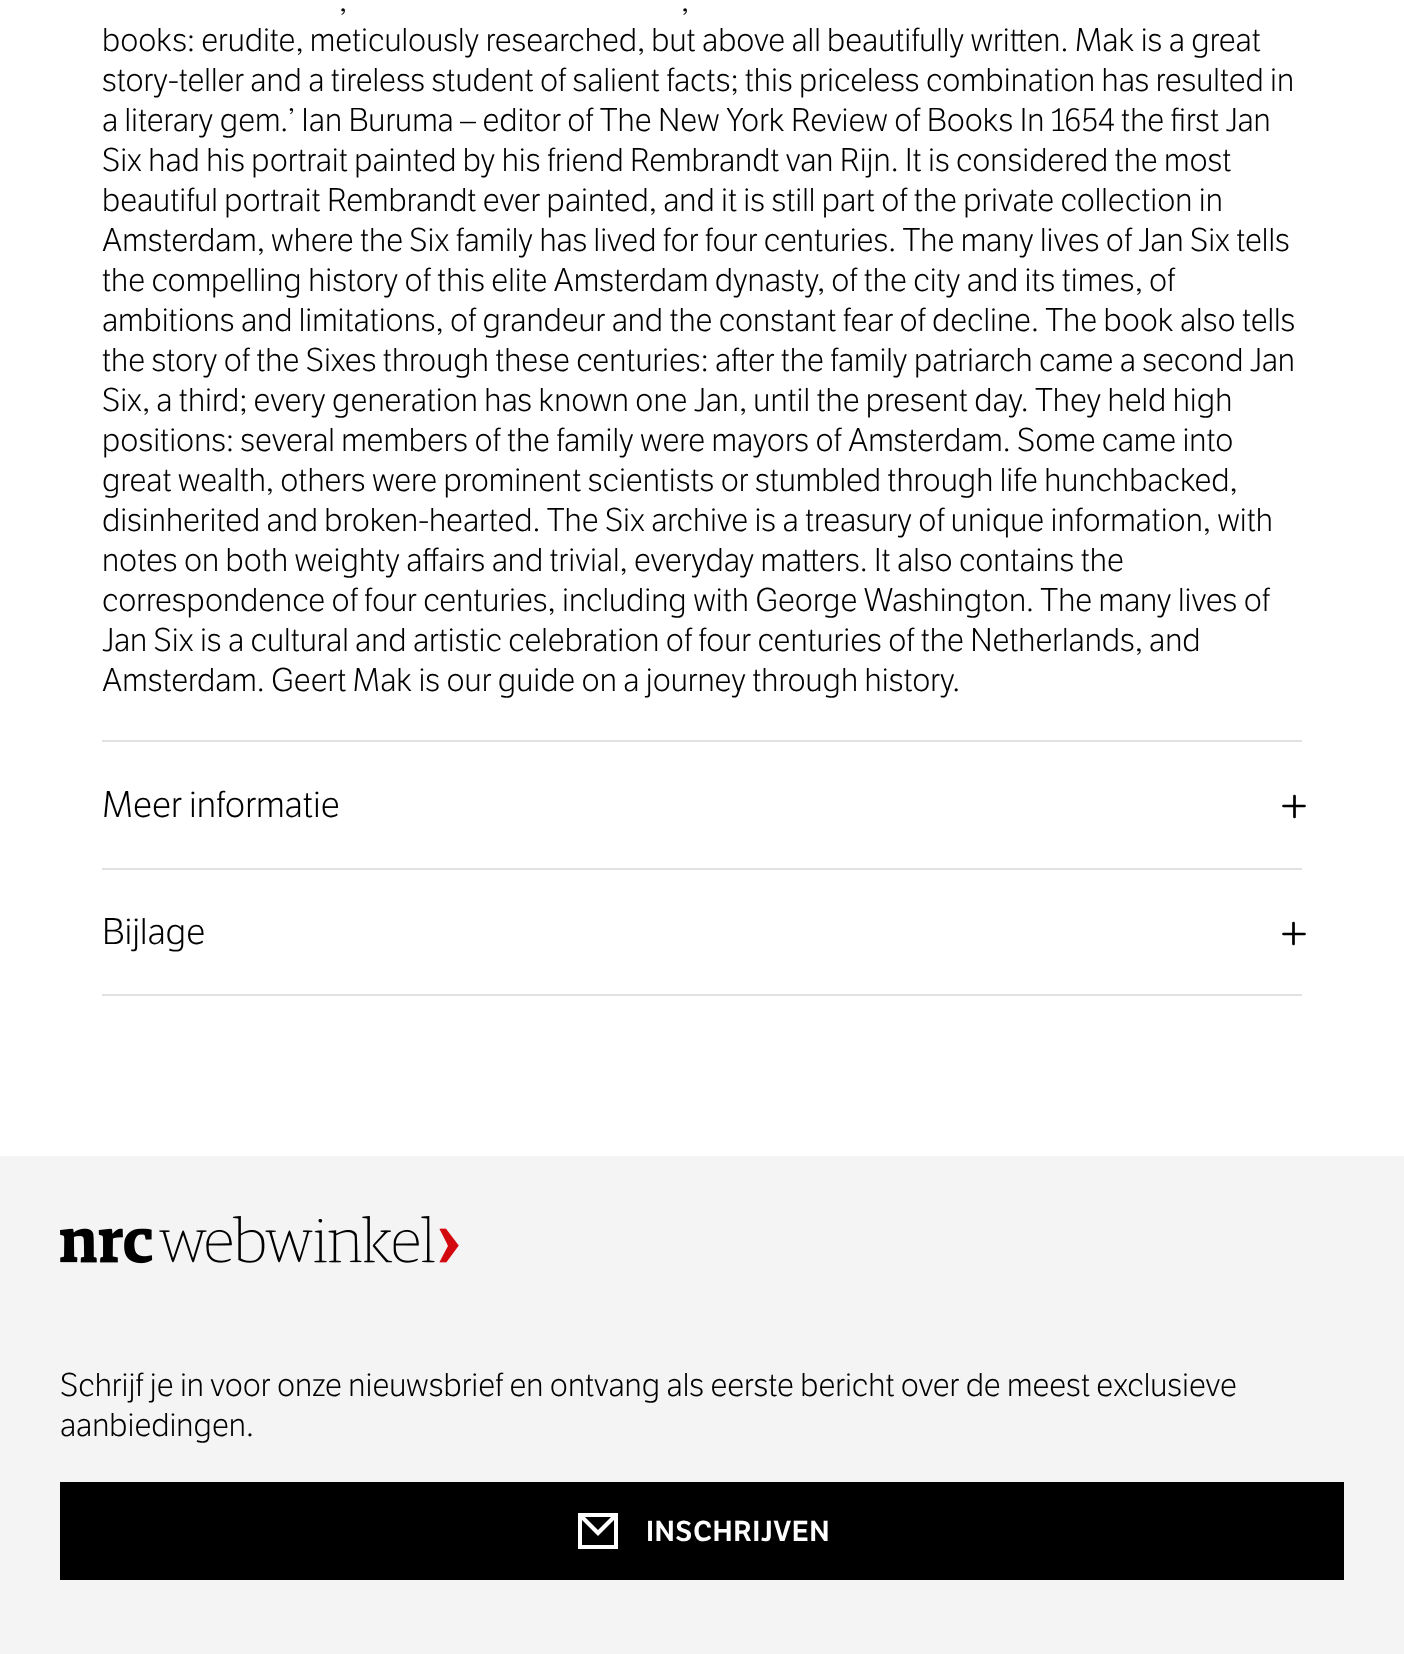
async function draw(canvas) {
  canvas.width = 1404
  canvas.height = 1654
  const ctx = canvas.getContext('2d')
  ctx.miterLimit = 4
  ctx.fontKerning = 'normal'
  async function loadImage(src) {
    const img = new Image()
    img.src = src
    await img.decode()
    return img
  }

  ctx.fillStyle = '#fff'
  ctx.fillRect(0, 0, 1404, 1654)
  ctx.fillStyle = '#e1e1e1'
  ctx.fillRect(102, 994, 1200, 2)
  ctx.font = '200 32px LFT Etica'
  ctx.fillStyle = '#000'
  ctx.fillText(',', 339, 11)
  ctx.fillText(',', 681, 11)
  ctx.fillText('books: erudite, meticulously researched, but above all beautifully written. Mak is a great', 102, 51)
  ctx.fillText('story-teller and a tireless student of salient facts; this priceless combination has resulted in', 102, 91)
  ctx.fillText('a literary gem.’ Ian Buruma – editor of The New York Review of Books In 1654 the first Jan', 102, 131)
  ctx.fillText('Six had his portrait painted by his friend Rembrandt van Rijn. It is considered the most', 102, 171)
  ctx.fillText('beautiful portrait Rembrandt ever painted, and it is still part of the private collection in', 102, 211)
  ctx.fillText('Amsterdam, where the Six family has lived for four centuries. The many lives of Jan Six tells', 102, 251)
  ctx.fillText('the compelling history of this elite Amsterdam dynasty, of the city and its times, of', 102, 291)
  ctx.fillText('ambitions and limitations, of grandeur and the constant fear of decline. The book also tells', 102, 331)
  ctx.fillText('the story of the Sixes through these centuries: after the family patriarch came a second Jan', 102, 371)
  ctx.fillText('Six, a third; every generation has known one Jan, until the present day. They held high', 102, 411)
  ctx.fillText('positions: several members of the family were mayors of Amsterdam. Some came into', 102, 451)
  ctx.fillText('great wealth, others were prominent scientists or stumbled through life hunchbacked,', 102, 491)
  ctx.fillText('disinherited and broken-hearted. The Six archive is a treasury of unique information, with', 102, 531)
  ctx.fillText('notes on both weighty affairs and trivial, everyday matters. It also contains the', 102, 571)
  ctx.fillText('correspondence of four centuries, including with George Washington. The many lives of', 102, 611)
  ctx.fillText('Jan Six is a cultural and artistic celebration of four centuries of the Netherlands, and', 102, 651)
  ctx.fillText('Amsterdam. Geert Mak is our guide on a journey through history.', 102, 691)
  ctx.fillStyle = '#e1e1e1'
  ctx.fillRect(102, 740, 1200, 2)
  ctx.font = '200 36px LFT Etica'
  ctx.fillStyle = '#000'
  ctx.fillText('Meer informatie', 102, 817)
  ctx.beginPath()
  ctx.moveTo(1294.5, 817)
  ctx.lineTo(1294.5, 796)
  ctx.moveTo(1304.5, 806)
  ctx.lineTo(1283.5, 806)
  ctx.strokeStyle = '#000'
  ctx.lineWidth = 2.7
  ctx.lineCap = 'round'
  ctx.lineJoin = 'round'
  ctx.stroke()
  ctx.fillStyle = '#e1e1e1'
  ctx.fillRect(102, 868, 1200, 2)
  ctx.fillStyle = '#000'
  ctx.fillText('Bijlage', 102, 944)
  ctx.beginPath()
  ctx.moveTo(1293.5, 944)
  ctx.lineTo(1293.5, 923)
  ctx.moveTo(1304.5, 934)
  ctx.lineTo(1283.5, 934)
  ctx.stroke()
  ctx.fillStyle = '#f4f4f4'
  ctx.fillRect(0, 1156, 1404, 498)
  ctx.drawImage(await loadImage('image0.png'), 60, 1216, 399, 48)
  ctx.font = '200 32px LFT Etica'
  ctx.fillStyle = '#000'
  ctx.fillText('Schrijf je in voor onze nieuwsbrief en ontvang als eerste bericht over de meest exclusieve', 60, 1396)
  ctx.fillText('aanbiedingen.', 60, 1436)
  ctx.fillRect(60, 1482, 1284, 98)
  ctx.fillStyle = '#fff'
  ctx.beginPath()
  ctx.moveTo(578, 1549)
  ctx.lineTo(578, 1513)
  ctx.lineTo(618, 1513)
  ctx.lineTo(618, 1549)
  ctx.closePath()
  ctx.moveTo(582, 1545)
  ctx.lineTo(614, 1545)
  ctx.lineTo(614, 1520)
  ctx.lineTo(598, 1536)
  ctx.lineTo(582, 1520)
  ctx.closePath()
  ctx.moveTo(598, 1530)
  ctx.lineTo(611, 1517)
  ctx.lineTo(585, 1517)
  ctx.closePath()
  ctx.fill('evenodd')
  ctx.letterSpacing = '0.5px'
  ctx.font = '600 28px LFT Etica'
  ctx.fillText('INSCHRIJVEN', 646, 1541)
}

draw(document.querySelector('canvas'))
